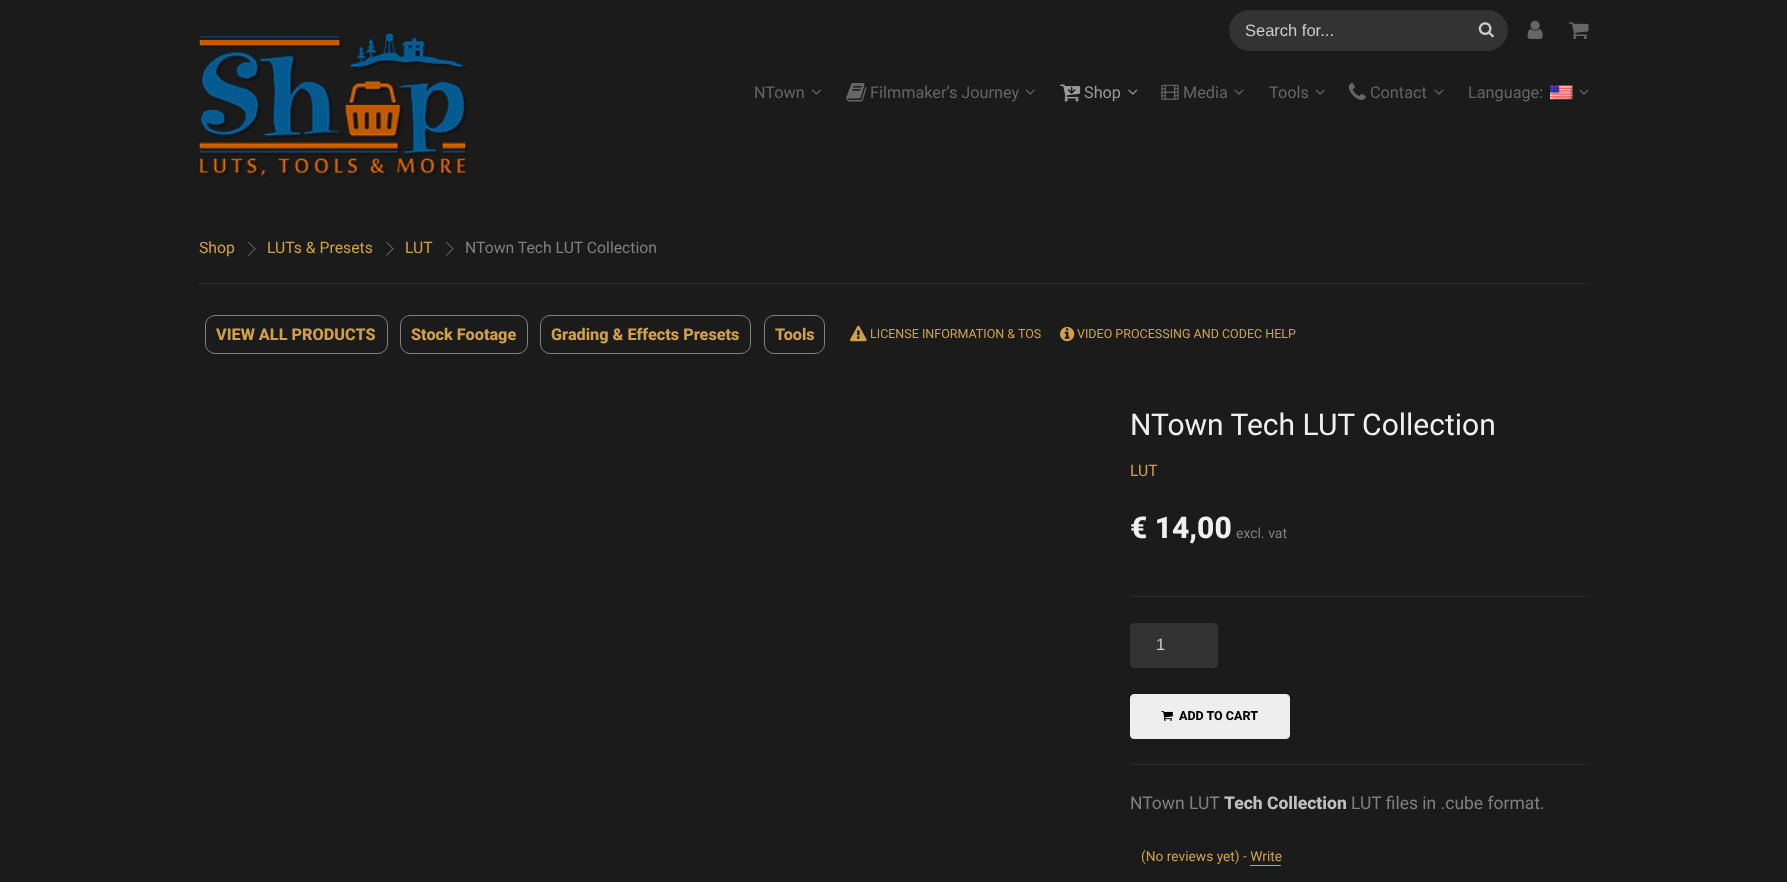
async function draw(canvas) {
  canvas.width = 1787
  canvas.height = 882
  const ctx = canvas.getContext('2d')
  ctx.miterLimit = 4
  ctx.fontKerning = 'normal'
  async function loadImage(src) {
    const img = new Image()
    img.src = src
    await img.decode()
    return img
  }

  ctx.fillStyle = '#1b1b1b'
  ctx.fillRect(0, 0, 1787, 882)
  ctx.drawImage(await loadImage('image0.png'), 198, 32, 270, 145)
  ctx.fillStyle = '#333'
  ctx.beginPath()
  ctx.roundRect(1229.5, 10.5, 278, 40, 20)
  ctx.fill()
  ctx.strokeStyle = '#333'
  ctx.stroke()
  ctx.font = '16.5px Liberation Sans'
  ctx.fillStyle = '#ccc'
  ctx.fillText('Search for...', 1245, 36)
  ctx.drawImage(await loadImage('image1.png'), 1478, 22, 16, 16)
  ctx.drawImage(await loadImage('image2.png'), 1527, 20, 16, 19)
  ctx.drawImage(await loadImage('image3.png'), 1568, 22, 21, 17)
  ctx.font = '16.25px Roboto'
  ctx.fillStyle = '#666'
  ctx.fillText('NTown', 754, 98)
  ctx.drawImage(await loadImage('image4.png'), 812, 89, 9, 6)
  ctx.drawImage(await loadImage('image5.png'), 846, 83, 21, 19)
  ctx.fillText('Filmmaker’s Journey', 870, 98)
  ctx.drawImage(await loadImage('image6.png'), 1025, 89, 10, 6)
  ctx.drawImage(await loadImage('image7.png'), 1060, 84, 21, 18)
  ctx.fillStyle = '#999'
  ctx.fillText('Shop', 1084, 98)
  ctx.drawImage(await loadImage('image8.png'), 1128, 89, 10, 6)
  ctx.drawImage(await loadImage('image9.png'), 1161, 84, 18, 16)
  ctx.fillStyle = '#666'
  ctx.fillText('Media', 1183, 98)
  ctx.drawImage(await loadImage('image10.png'), 1234, 89, 10, 6)
  ctx.fillText('Tools', 1269, 98)
  ctx.drawImage(await loadImage('image6.png'), 1315, 89, 10, 6)
  ctx.drawImage(await loadImage('image11.png'), 1348, 83, 18, 17)
  ctx.fillText('Contact', 1370, 98)
  ctx.drawImage(await loadImage('image10.png'), 1434, 89, 10, 6)
  ctx.fillText('Language:', 1468, 98)
  ctx.drawImage(await loadImage('image12.png'), 1550, 85, 23, 15)
  ctx.drawImage(await loadImage('image10.png'), 1579, 89, 10, 6)
  ctx.fillStyle = '#2b2b2b'
  ctx.fillRect(199, 283, 1390, 1)
  ctx.font = '15.75px Roboto'
  ctx.fillStyle = '#d1a149'
  ctx.fillText('Shop', 199, 253)
  ctx.font = '30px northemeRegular'
  ctx.fillStyle = '#808080'
  ctx.fillText('>', 247, 258)
  ctx.font = '15.75px Roboto'
  ctx.fillStyle = '#d1a149'
  ctx.fillText('LUTs & Presets', 267, 253)
  ctx.font = '30px northemeRegular'
  ctx.fillStyle = '#808080'
  ctx.fillText('>', 385, 258)
  ctx.font = '15.75px Roboto'
  ctx.fillStyle = '#d1a149'
  ctx.fillText('LUT', 405, 253)
  ctx.font = '30px northemeRegular'
  ctx.fillStyle = '#808080'
  ctx.fillText('>', 445, 258)
  ctx.font = '15.75px Roboto'
  ctx.fillText('NTown Tech LUT Collection', 465, 253)
  ctx.beginPath()
  ctx.roundRect(205.5, 315.5, 182, 38, 9.5)
  ctx.strokeStyle = '#808080'
  ctx.stroke()
  ctx.font = '800 16.25px Roboto'
  ctx.fillStyle = '#d1a149'
  ctx.fillText('VIEW ALL PRODUCTS', 216, 340)
  ctx.beginPath()
  ctx.roundRect(400.5, 315.5, 127, 38, 9.5)
  ctx.stroke()
  ctx.fillText('Stock Footage', 411, 340)
  ctx.beginPath()
  ctx.roundRect(540.5, 315.5, 210, 38, 9.5)
  ctx.stroke()
  ctx.fillText('Grading & Effects Presets', 551, 340)
  ctx.beginPath()
  ctx.roundRect(764.5, 315.5, 60, 38, 9.5)
  ctx.stroke()
  ctx.fillText('Tools', 775, 340)
  ctx.drawImage(await loadImage('image13.png'), 850, 325, 17, 17)
  ctx.font = '12.5px Roboto'
  ctx.fillText('LICENSE INFORMATION & TOS', 870, 338)
  ctx.drawImage(await loadImage('image14.png'), 1060, 326, 15, 16)
  ctx.fillText('VIDEO PROCESSING AND CODEC HELP', 1077, 338)
  ctx.font = '30px Roboto'
  ctx.fillStyle = '#f0f0f0'
  ctx.fillText('NTown Tech LUT Collection', 1130, 435)
  ctx.font = '15.75px Roboto'
  ctx.fillStyle = '#d1a149'
  ctx.fillText('LUT', 1130, 476)
  ctx.fillStyle = '#2b2b2b'
  ctx.fillRect(1130, 596, 459, 1)
  ctx.font = '800 30px Roboto'
  ctx.fillStyle = '#f0f0f0'
  ctx.fillText('€ 14,00', 1130, 538)
  ctx.font = '14px Roboto'
  ctx.fillStyle = '#808080'
  ctx.fillText('excl. vat', 1236, 538)
  ctx.fillStyle = '#2b2b2b'
  ctx.fillRect(1130, 764, 459, 1)
  ctx.fillStyle = '#333'
  ctx.beginPath()
  ctx.roundRect(1130.5, 623.5, 87, 44, 3.5)
  ctx.fill()
  ctx.strokeStyle = '#333'
  ctx.stroke()
  ctx.font = '16.5px Liberation Sans'
  ctx.fillStyle = '#ccc'
  ctx.fillText('1', 1156, 650)
  ctx.fillStyle = '#eee'
  ctx.beginPath()
  ctx.roundRect(1130.5, 694.5, 159, 44, 3.5)
  ctx.fill()
  ctx.strokeStyle = '#eee'
  ctx.stroke()
  ctx.drawImage(await loadImage('image15.png'), 1161, 711, 12, 10)
  ctx.font = '800 12.5px Roboto'
  ctx.fillStyle = '#000'
  ctx.fillText('ADD TO CART', 1179, 720)
  ctx.font = '17.5px Roboto'
  ctx.fillStyle = '#808080'
  ctx.fillText('NTown LUT', 1130, 809)
  ctx.font = '800 17.5px Roboto'
  ctx.fillStyle = '#c0c0c0'
  ctx.fillText('Tech Collection', 1224, 809)
  ctx.font = '17.5px Roboto'
  ctx.fillStyle = '#808080'
  ctx.fillText('LUT files in .cube format.', 1351, 809)
  ctx.font = '13.75px Roboto'
  ctx.fillStyle = '#d1a149'
  ctx.fillText('(No reviews yet) - Write', 1141, 861)
  ctx.fillRect(1250, 865, 31, 1)
}

draw(document.querySelector('canvas'))
